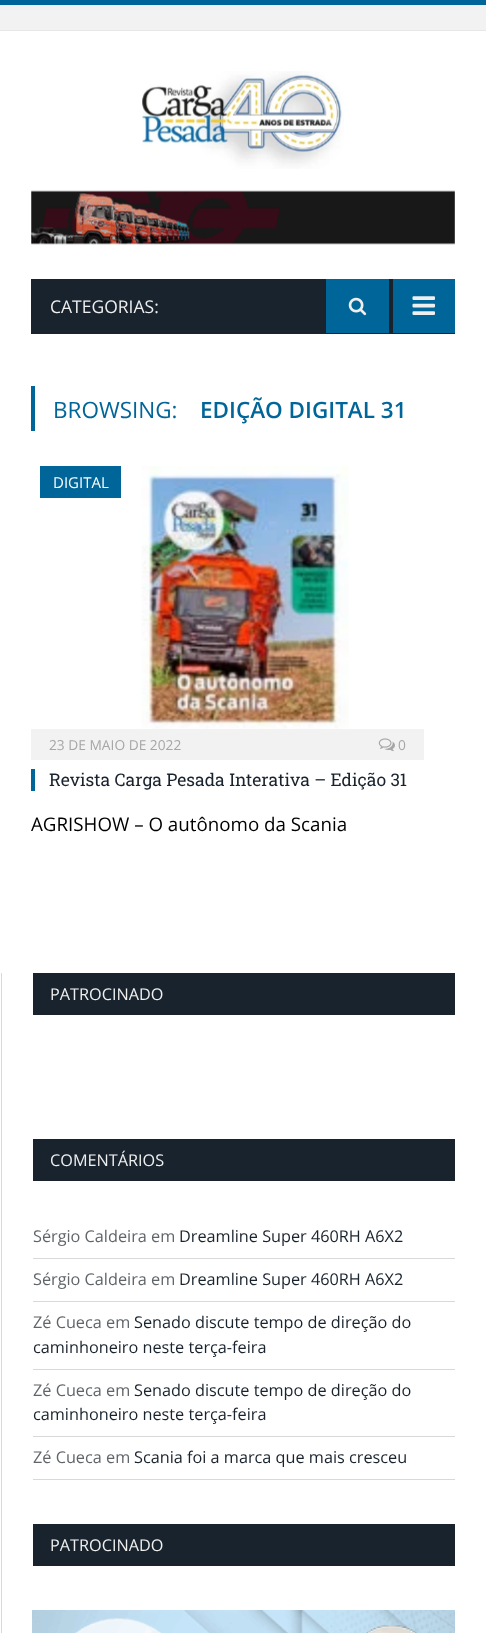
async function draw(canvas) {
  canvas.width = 486
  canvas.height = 1633
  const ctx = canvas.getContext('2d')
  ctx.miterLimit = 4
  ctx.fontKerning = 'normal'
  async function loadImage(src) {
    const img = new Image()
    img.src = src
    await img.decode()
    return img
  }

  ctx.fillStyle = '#fff'
  ctx.fillRect(0, 0, 486, 1633)
  ctx.fillStyle = '#f2f2f2'
  ctx.fillRect(0, 5, 486, 25)
  ctx.fillStyle = '#069'
  ctx.fillRect(0, 0, 486, 5)
  ctx.fillStyle = '#e7e7e7'
  ctx.fillRect(0, 30, 486, 1)
  ctx.drawImage(await loadImage('image0.png'), 142, 71, 202, 98)
  ctx.drawImage(await loadImage('image1.png'), 31, 190, 424, 55)
  ctx.fillStyle = '#19232d'
  ctx.fillRect(31, 279, 424, 55)
  ctx.font = '17.5px Open Sans'
  ctx.fillStyle = '#efefef'
  ctx.fillText('CATEGORIAS:', 50, 313)
  ctx.fillStyle = '#069'
  ctx.fillRect(326, 279, 63, 54)
  ctx.drawImage(await loadImage('image2.png'), 348, 297, 19, 19)
  ctx.fillRect(393, 279, 62, 54)
  ctx.drawImage(await loadImage('image3.png'), 412, 296, 23, 19)
  ctx.fillRect(31, 386, 4, 45)
  ctx.font = '22.5px Open Sans'
  ctx.fillText('BROWSING:', 53, 418)
  ctx.font = '600 22.5px Open Sans'
  ctx.fillText('EDIÇÃO DIGITAL 31', 200, 418)
  ctx.fillRect(40, 466, 81, 32)
  ctx.font = '15px Open Sans'
  ctx.fillStyle = '#fff'
  ctx.fillText('DIGITAL', 53, 488)
  ctx.drawImage(await loadImage('image4.png'), 141, 466, 208, 263)
  ctx.fillStyle = '#f2f2f2'
  ctx.fillRect(31, 729, 393, 31)
  ctx.font = '13.75px Open Sans'
  ctx.fillStyle = '#a6a6a6'
  ctx.fillText('23 DE MAIO DE 2022', 49, 750)
  ctx.drawImage(await loadImage('image5.png'), 378, 738, 17, 14)
  ctx.fillText('0', 398, 750)
  ctx.fillStyle = '#069'
  ctx.fillRect(31, 769, 4, 22)
  ctx.font = '17.5px Roboto Slab'
  ctx.fillStyle = '#19232d'
  ctx.fillText('Revista Carga Pesada Interativa – Edição 31', 49, 786)
  ctx.font = '18.75px Open Sans'
  ctx.fillStyle = '#000'
  ctx.fillText('AGRISHOW – O autônomo da Scania', 31, 831)
  ctx.fillStyle = '#d9d9d9'
  ctx.fillRect(1, 973, 1, 660)
  ctx.fillStyle = '#19232d'
  ctx.fillRect(33, 973, 422, 42)
  ctx.font = '16.25px Open Sans'
  ctx.fillStyle = '#efefef'
  ctx.fillText('PATROCINADO', 50, 1000)
  ctx.fillStyle = '#19232d'
  ctx.fillRect(33, 1139, 422, 42)
  ctx.fillStyle = '#efefef'
  ctx.fillText('COMENTÁRIOS', 50, 1166)
  ctx.fillStyle = '#d9d9d9'
  ctx.fillRect(33, 1258, 422, 1)
  ctx.fillStyle = '#606569'
  ctx.fillText('Sérgio Caldeira em', 33, 1242)
  ctx.fillStyle = '#19232d'
  ctx.fillText('Dreamline Super 460RH A6X2', 179, 1242)
  ctx.fillStyle = '#d9d9d9'
  ctx.fillRect(33, 1301, 422, 1)
  ctx.fillStyle = '#606569'
  ctx.fillText('Sérgio Caldeira em', 33, 1285)
  ctx.fillStyle = '#19232d'
  ctx.fillText('Dreamline Super 460RH A6X2', 179, 1285)
  ctx.fillStyle = '#d9d9d9'
  ctx.fillRect(33, 1369, 422, 1)
  ctx.fillStyle = '#606569'
  ctx.fillText('Zé Cueca em', 33, 1328)
  ctx.fillStyle = '#19232d'
  ctx.fillText('Senado discute tempo de direção do', 134, 1328)
  ctx.fillText('caminhoneiro neste terça-feira', 33, 1353)
  ctx.fillStyle = '#d9d9d9'
  ctx.fillRect(33, 1436, 422, 1)
  ctx.fillStyle = '#606569'
  ctx.fillText('Zé Cueca em', 33, 1396)
  ctx.fillStyle = '#19232d'
  ctx.fillText('Senado discute tempo de direção do', 134, 1396)
  ctx.fillText('caminhoneiro neste terça-feira', 33, 1420)
  ctx.fillStyle = '#d9d9d9'
  ctx.fillRect(33, 1479, 422, 1)
  ctx.fillStyle = '#606569'
  ctx.fillText('Zé Cueca em', 33, 1463)
  ctx.fillStyle = '#19232d'
  ctx.fillText('Scania foi a marca que mais cresceu', 134, 1463)
  ctx.fillRect(33, 1524, 422, 42)
  ctx.fillStyle = '#efefef'
  ctx.fillText('PATROCINADO', 50, 1551)
  ctx.drawImage(await loadImage('image6.png'), 32, 1610, 423, 23)
}

draw(document.querySelector('canvas'))
